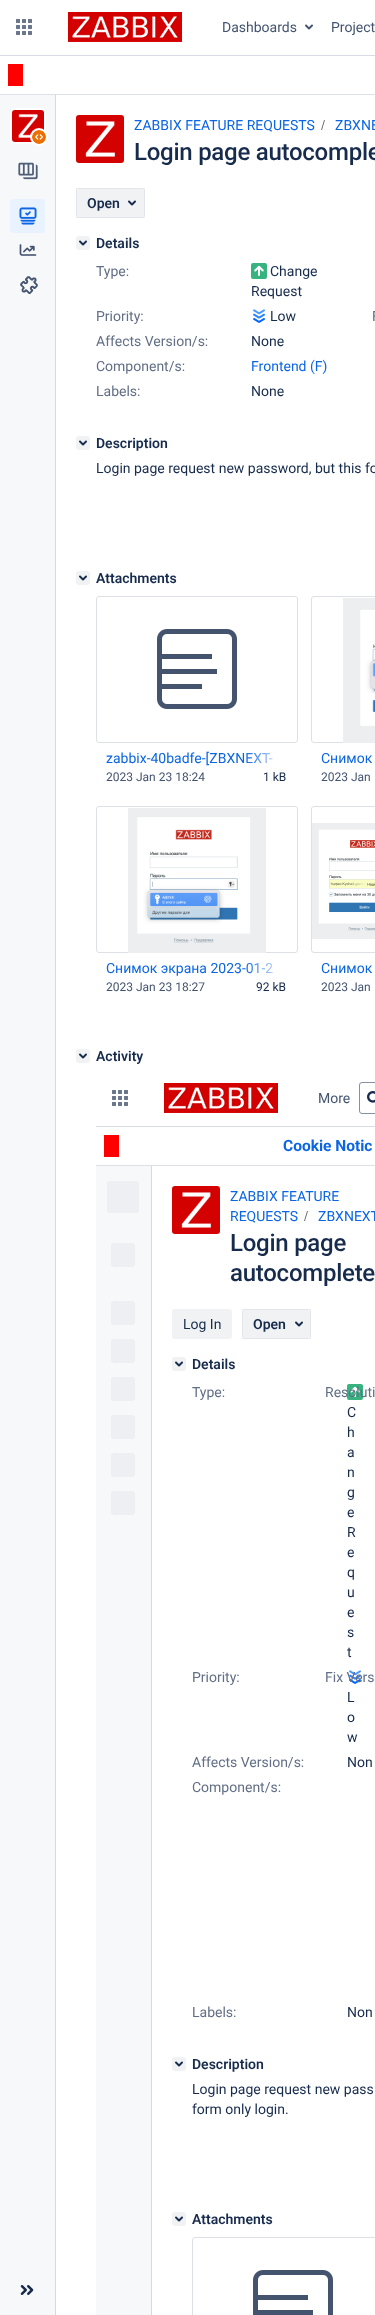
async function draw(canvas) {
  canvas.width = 375
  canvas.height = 2315
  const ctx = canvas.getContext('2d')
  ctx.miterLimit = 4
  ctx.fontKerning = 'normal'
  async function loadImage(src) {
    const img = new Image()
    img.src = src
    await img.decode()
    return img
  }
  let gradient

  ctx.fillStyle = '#fff'
  ctx.fillRect(0, 0, 375, 2315)
  ctx.fillStyle = '#d8dce2'
  ctx.fillRect(0, 55, 375, 1)
  ctx.drawImage(await loadImage('image0.png'), 16, 19, 16, 16)
  ctx.drawImage(await loadImage('image1.png'), 68, 12, 114, 30)
  ctx.font = '14px Roboto'
  ctx.fillStyle = '#44546f'
  ctx.fillText('Dashboards', 222, 32)
  ctx.drawImage(await loadImage('image2.png'), 305, 24, 8, 6)
  ctx.fillText('Project', 331, 32)
  ctx.fillStyle = '#dde0e5'
  ctx.fillRect(0, 94, 375, 1)
  ctx.fillStyle = '#f00'
  ctx.fillRect(8, 64, 15, 22)
  ctx.fillStyle = '#f7f8f9'
  ctx.fillRect(0, 95, 55, 2220)
  ctx.fillStyle = '#d6d9df'
  ctx.fillRect(55, 95, 1, 2220)
  ctx.beginPath()
  ctx.roundRect(11, 109, 34, 34, 4)
  ctx.strokeStyle = '#fff'
  ctx.lineWidth = 2
  ctx.stroke()
  ctx.drawImage(await loadImage('image3.png'), 12, 110, 32, 32)
  ctx.fillStyle = '#fff'
  ctx.beginPath()
  ctx.arc(39, 137, 9, 0, 2 * Math.PI)
  ctx.fill()
  ctx.drawImage(await loadImage('image4.png'), 32, 130, 14, 14)
  ctx.drawImage(await loadImage('image5.png'), 18, 162, 20, 18)
  ctx.fillStyle = '#e9f2ff'
  ctx.beginPath()
  ctx.roundRect(10, 199, 35, 34, 3)
  ctx.fill()
  ctx.drawImage(await loadImage('image6.png'), 19, 207, 18, 18)
  ctx.drawImage(await loadImage('image7.png'), 19, 244, 18, 12)
  ctx.drawImage(await loadImage('image8.png'), 20, 276, 18, 18)
  ctx.drawImage(await loadImage('image9.png'), 20, 2285, 14, 10)
  ctx.drawImage(await loadImage('image10.png'), 76, 115, 48, 48)
  ctx.fillStyle = '#0c66e4'
  ctx.fillText('ZABBIX FEATURE REQUESTS', 134, 130)
  ctx.fillStyle = '#707070'
  ctx.beginPath()
  ctx.moveTo(322, 130)
  ctx.lineTo(325, 120)
  ctx.lineTo(324, 120)
  ctx.lineTo(321, 130)
  ctx.closePath()
  ctx.fill()
  ctx.fillStyle = '#0c66e4'
  ctx.fillText('ZBXNE', 335, 130)
  ctx.letterSpacing = '-0.25px'
  ctx.font = '500 24px Roboto'
  ctx.fillStyle = '#172b4d'
  ctx.fillText('Login page autocomple', 134, 160)
  ctx.fillStyle = '#f0f2f4'
  ctx.beginPath()
  ctx.roundRect(76, 188, 69, 30, 3)
  ctx.fill()
  ctx.strokeStyle = '#091e420f'
  ctx.lineWidth = 1
  ctx.strokeRect(76.5, 188.5, 68, 29)
  ctx.letterSpacing = '0px'
  ctx.font = '600 14px Roboto'
  ctx.fillStyle = '#172b4d'
  ctx.fillText('Open', 87, 208)
  ctx.drawImage(await loadImage('image11.png'), 128, 200, 8, 6)
  ctx.fillStyle = '#f0f2f4'
  ctx.beginPath()
  ctx.roundRect(76, 236, 14, 14, 3)
  ctx.fill()
  ctx.drawImage(await loadImage('image12.png'), 79, 240, 8, 6)
  ctx.fillStyle = '#172b4d'
  ctx.fillText('Details', 96, 248)
  ctx.font = '14px Roboto'
  ctx.fillStyle = '#626f86'
  ctx.fillText('Type:', 96, 276)
  ctx.drawImage(await loadImage('image13.png'), 251, 263, 16, 16)
  ctx.fillStyle = '#172b4d'
  ctx.fillText('Change', 270, 276)
  ctx.fillText('Request', 251, 296)
  ctx.fillStyle = '#626f86'
  ctx.fillText('Priority:', 96, 321)
  ctx.drawImage(await loadImage('image14.png'), 253, 309, 12, 14)
  ctx.fillStyle = '#172b4d'
  ctx.fillText('Low', 270, 321)
  ctx.fillStyle = '#626f86'
  ctx.fillText('F', 372, 321)
  ctx.fillText('Affects Version/s:', 96, 346)
  ctx.fillStyle = '#172b4d'
  ctx.fillText('None', 251, 346)
  ctx.fillStyle = '#626f86'
  ctx.fillText('Component/s:', 96, 371)
  ctx.fillStyle = '#0c66e4'
  ctx.fillText('Frontend (F)', 251, 371)
  ctx.fillStyle = '#626f86'
  ctx.fillText('Labels:', 96, 396)
  ctx.fillStyle = '#172b4d'
  ctx.fillText('None', 251, 396)
  ctx.fillStyle = '#f0f2f4'
  ctx.beginPath()
  ctx.roundRect(76, 436, 14, 14, 3)
  ctx.fill()
  ctx.drawImage(await loadImage('image12.png'), 79, 440, 8, 6)
  ctx.font = '600 14px Roboto'
  ctx.fillStyle = '#172b4d'
  ctx.fillText('Description', 96, 448)
  ctx.font = '14px Roboto'
  ctx.fillText('Login page request new password, but this fo', 96, 473)
  ctx.fillStyle = '#f0f2f4'
  ctx.beginPath()
  ctx.roundRect(76, 571, 14, 14, 3)
  ctx.fill()
  ctx.drawImage(await loadImage('image12.png'), 79, 575, 8, 6)
  ctx.font = '600 14px Roboto'
  ctx.fillStyle = '#172b4d'
  ctx.fillText('Attachments', 96, 583)
  ctx.beginPath()
  ctx.roundRect(96.5, 596.5, 201, 146, 2.5)
  ctx.strokeStyle = '#dde0e5'
  ctx.stroke()
  ctx.drawImage(await loadImage('image15.png'), 157, 629, 80, 80)
  ctx.font = '14px Roboto'
  ctx.fillStyle = '#0c66e4'
  ctx.fillText('zabbix-40badfe-[ZBXNEXT-', 106, 763)
  gradient = ctx.createLinearGradient(244, 759, 286, 759)
  gradient.addColorStop(0, '#ffffff00')
  gradient.addColorStop(1, '#fff')
  ctx.fillStyle = gradient
  ctx.fillRect(246, 753, 27, 10)
  ctx.font = '12px Roboto'
  ctx.fillStyle = '#44546f'
  ctx.fillText('2023 Jan 23 18:24', 106, 781)
  ctx.fillStyle = '#172b4d'
  ctx.fillText('1 kB', 263, 781)
  ctx.beginPath()
  ctx.roundRect(311.5, 596.5, 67, 146, 2.5)
  ctx.stroke()
  ctx.drawImage(await loadImage('image16.png'), 343, 598, 32, 145)
  ctx.font = '14px Roboto'
  ctx.fillStyle = '#0c66e4'
  ctx.fillText('Снимок', 321, 763)
  ctx.font = '12px Roboto'
  ctx.fillStyle = '#44546f'
  ctx.fillText('2023 Jan', 321, 781)
  ctx.beginPath()
  ctx.roundRect(96.5, 806.5, 201, 146, 2.5)
  ctx.stroke()
  ctx.drawImage(await loadImage('image17.png'), 128, 808, 138, 145)
  ctx.font = '14px Roboto'
  ctx.fillStyle = '#0c66e4'
  ctx.fillText('Снимок экрана 2023-01-2', 106, 973)
  gradient = ctx.createLinearGradient(244, 969, 286, 969)
  gradient.addColorStop(0, '#ffffff00')
  gradient.addColorStop(1, '#fff')
  ctx.fillStyle = gradient
  ctx.fillRect(245, 962, 28, 12)
  ctx.font = '12px Roboto'
  ctx.fillStyle = '#44546f'
  ctx.fillText('2023 Jan 23 18:27', 106, 991)
  ctx.fillStyle = '#172b4d'
  ctx.fillText('92 kB', 256, 991)
  ctx.beginPath()
  ctx.roundRect(311.5, 806.5, 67, 146, 2.5)
  ctx.stroke()
  ctx.drawImage(await loadImage('image18.png'), 312, 823, 63, 116)
  ctx.font = '14px Roboto'
  ctx.fillStyle = '#0c66e4'
  ctx.fillText('Снимок', 321, 973)
  ctx.font = '12px Roboto'
  ctx.fillStyle = '#44546f'
  ctx.fillText('2023 Jan', 321, 991)
  ctx.fillStyle = '#f0f2f4'
  ctx.beginPath()
  ctx.roundRect(76, 1049, 14, 14, 3)
  ctx.fill()
  ctx.drawImage(await loadImage('image12.png'), 79, 1053, 8, 6)
  ctx.font = '600 14px Roboto'
  ctx.fillStyle = '#172b4d'
  ctx.fillText('Activity', 96, 1061)
  ctx.fillStyle = '#d8dce2'
  ctx.fillRect(96, 1126, 279, 1)
  ctx.drawImage(await loadImage('image0.png'), 112, 1090, 16, 16)
  ctx.drawImage(await loadImage('image1.png'), 164, 1083, 114, 30)
  ctx.font = '14px Roboto'
  ctx.fillStyle = '#44546f'
  ctx.fillText('More', 318, 1103)
  ctx.beginPath()
  ctx.roundRect(359.5, 1082.5, 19, 31, 2.5)
  ctx.strokeStyle = '#8590a2'
  ctx.stroke()
  ctx.drawImage(await loadImage('image19.png'), 367, 1091, 8, 12)
  ctx.fillStyle = '#dde0e5'
  ctx.fillRect(96, 1165, 279, 1)
  ctx.fillStyle = '#f00'
  ctx.fillRect(104, 1135, 15, 22)
  ctx.font = 'bold 15.5px Roboto'
  ctx.fillStyle = '#0c66e4'
  ctx.fillText('Cookie Notic', 283, 1151)
  ctx.fillStyle = '#f7f8f9'
  ctx.fillRect(96, 1166, 55, 1149)
  ctx.fillStyle = '#d6d9df'
  ctx.fillRect(151, 1166, 1, 1149)
  ctx.fillStyle = '#edeff2'
  ctx.beginPath()
  ctx.roundRect(107, 1181, 32, 32, 3)
  ctx.fill()
  ctx.beginPath()
  ctx.roundRect(111, 1243, 24, 24, 3)
  ctx.fill()
  ctx.beginPath()
  ctx.roundRect(111, 1301, 24, 24, 3)
  ctx.fill()
  ctx.beginPath()
  ctx.roundRect(111, 1339, 24, 24, 3)
  ctx.fill()
  ctx.beginPath()
  ctx.roundRect(111, 1377, 24, 24, 3)
  ctx.fill()
  ctx.beginPath()
  ctx.roundRect(111, 1415, 24, 24, 3)
  ctx.fill()
  ctx.beginPath()
  ctx.roundRect(111, 1453, 24, 24, 3)
  ctx.fill()
  ctx.beginPath()
  ctx.roundRect(111, 1491, 24, 24, 3)
  ctx.fill()
  ctx.drawImage(await loadImage('image10.png'), 172, 1186, 48, 48)
  ctx.font = '14px Roboto'
  ctx.fillStyle = '#0c66e4'
  ctx.fillText('ZABBIX FEATURE', 230, 1201)
  ctx.fillText('REQUESTS', 230, 1221)
  ctx.fillStyle = '#707070'
  ctx.beginPath()
  ctx.moveTo(305, 1221)
  ctx.lineTo(308, 1211)
  ctx.lineTo(307, 1211)
  ctx.lineTo(304, 1221)
  ctx.closePath()
  ctx.fill()
  ctx.fillStyle = '#0c66e4'
  ctx.fillText('ZBXNEXT', 318, 1221)
  ctx.letterSpacing = '-0.25px'
  ctx.font = '500 24px Roboto'
  ctx.fillStyle = '#172b4d'
  ctx.fillText('Login page', 230, 1251)
  ctx.fillText('autocomplete', 230, 1281)
  ctx.fillStyle = '#f0f2f4'
  ctx.beginPath()
  ctx.roundRect(172, 1309, 60, 30, 3)
  ctx.fill()
  ctx.letterSpacing = '0px'
  ctx.font = '14px Roboto'
  ctx.fillStyle = '#172b4d'
  ctx.fillText('Log In', 183, 1329)
  ctx.fillStyle = '#f0f2f4'
  ctx.beginPath()
  ctx.roundRect(242, 1309, 69, 30, 3)
  ctx.fill()
  ctx.strokeStyle = '#091e420f'
  ctx.strokeRect(242.5, 1309.5, 68, 29)
  ctx.font = '600 14px Roboto'
  ctx.fillStyle = '#172b4d'
  ctx.fillText('Open', 253, 1329)
  ctx.drawImage(await loadImage('image11.png'), 295, 1321, 8, 6)
  ctx.fillStyle = '#f0f2f4'
  ctx.beginPath()
  ctx.roundRect(172, 1357, 14, 14, 3)
  ctx.fill()
  ctx.drawImage(await loadImage('image12.png'), 175, 1361, 8, 6)
  ctx.fillStyle = '#172b4d'
  ctx.fillText('Details', 192, 1369)
  ctx.drawImage(await loadImage('image20.png'), 347, 1384, 16, 16)
  ctx.font = '14px Roboto'
  ctx.fillStyle = '#626f86'
  ctx.fillText('Resoluti', 325, 1397)
  ctx.fillText('Type:', 192, 1397)
  ctx.fillStyle = '#172b4d'
  ctx.fillText('C', 347, 1417)
  ctx.fillText('h', 347, 1437)
  ctx.fillText('a', 347, 1457)
  ctx.fillText('n', 347, 1477)
  ctx.fillText('g', 347, 1497)
  ctx.fillText('e', 347, 1517)
  ctx.fillText('R', 347, 1537)
  ctx.fillText('e', 347, 1557)
  ctx.fillText('q', 347, 1577)
  ctx.fillText('u', 347, 1597)
  ctx.fillText('e', 347, 1617)
  ctx.fillText('s', 347, 1637)
  ctx.fillText('t', 347, 1657)
  ctx.fillStyle = '#626f86'
  ctx.fillText('Priority:', 192, 1682)
  ctx.drawImage(await loadImage('image14.png'), 349, 1670, 12, 14)
  ctx.fillStyle = '#172b4d'
  ctx.fillText('L', 347, 1702)
  ctx.fillText('o', 347, 1722)
  ctx.fillText('w', 347, 1742)
  ctx.fillStyle = '#626f86'
  ctx.fillText('Fix Vers', 325, 1682)
  ctx.fillText('Affects Version/s:', 192, 1767)
  ctx.fillStyle = '#172b4d'
  ctx.fillText('Non', 347, 1767)
  ctx.fillStyle = '#626f86'
  ctx.fillText('Component/s:', 192, 1792)
  ctx.fillText('Labels:', 192, 2017)
  ctx.fillStyle = '#172b4d'
  ctx.fillText('Non', 347, 2017)
  ctx.fillStyle = '#f0f2f4'
  ctx.beginPath()
  ctx.roundRect(172, 2057, 14, 14, 3)
  ctx.fill()
  ctx.drawImage(await loadImage('image12.png'), 175, 2061, 8, 6)
  ctx.font = '600 14px Roboto'
  ctx.fillStyle = '#172b4d'
  ctx.fillText('Description', 192, 2069)
  ctx.font = '14px Roboto'
  ctx.fillText('Login page request new pass', 192, 2094)
  ctx.fillText('form only login.', 192, 2114)
  ctx.fillStyle = '#f0f2f4'
  ctx.beginPath()
  ctx.roundRect(172, 2212, 14, 14, 3)
  ctx.fill()
  ctx.drawImage(await loadImage('image12.png'), 175, 2216, 8, 6)
  ctx.font = '600 14px Roboto'
  ctx.fillStyle = '#172b4d'
  ctx.fillText('Attachments', 192, 2224)
  ctx.beginPath()
  ctx.roundRect(192.5, 2237.5, 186, 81, 2.5)
  ctx.strokeStyle = '#dde0e5'
  ctx.stroke()
  ctx.drawImage(await loadImage('image21.png'), 253, 2270, 80, 45)
}

draw(document.querySelector('canvas'))
